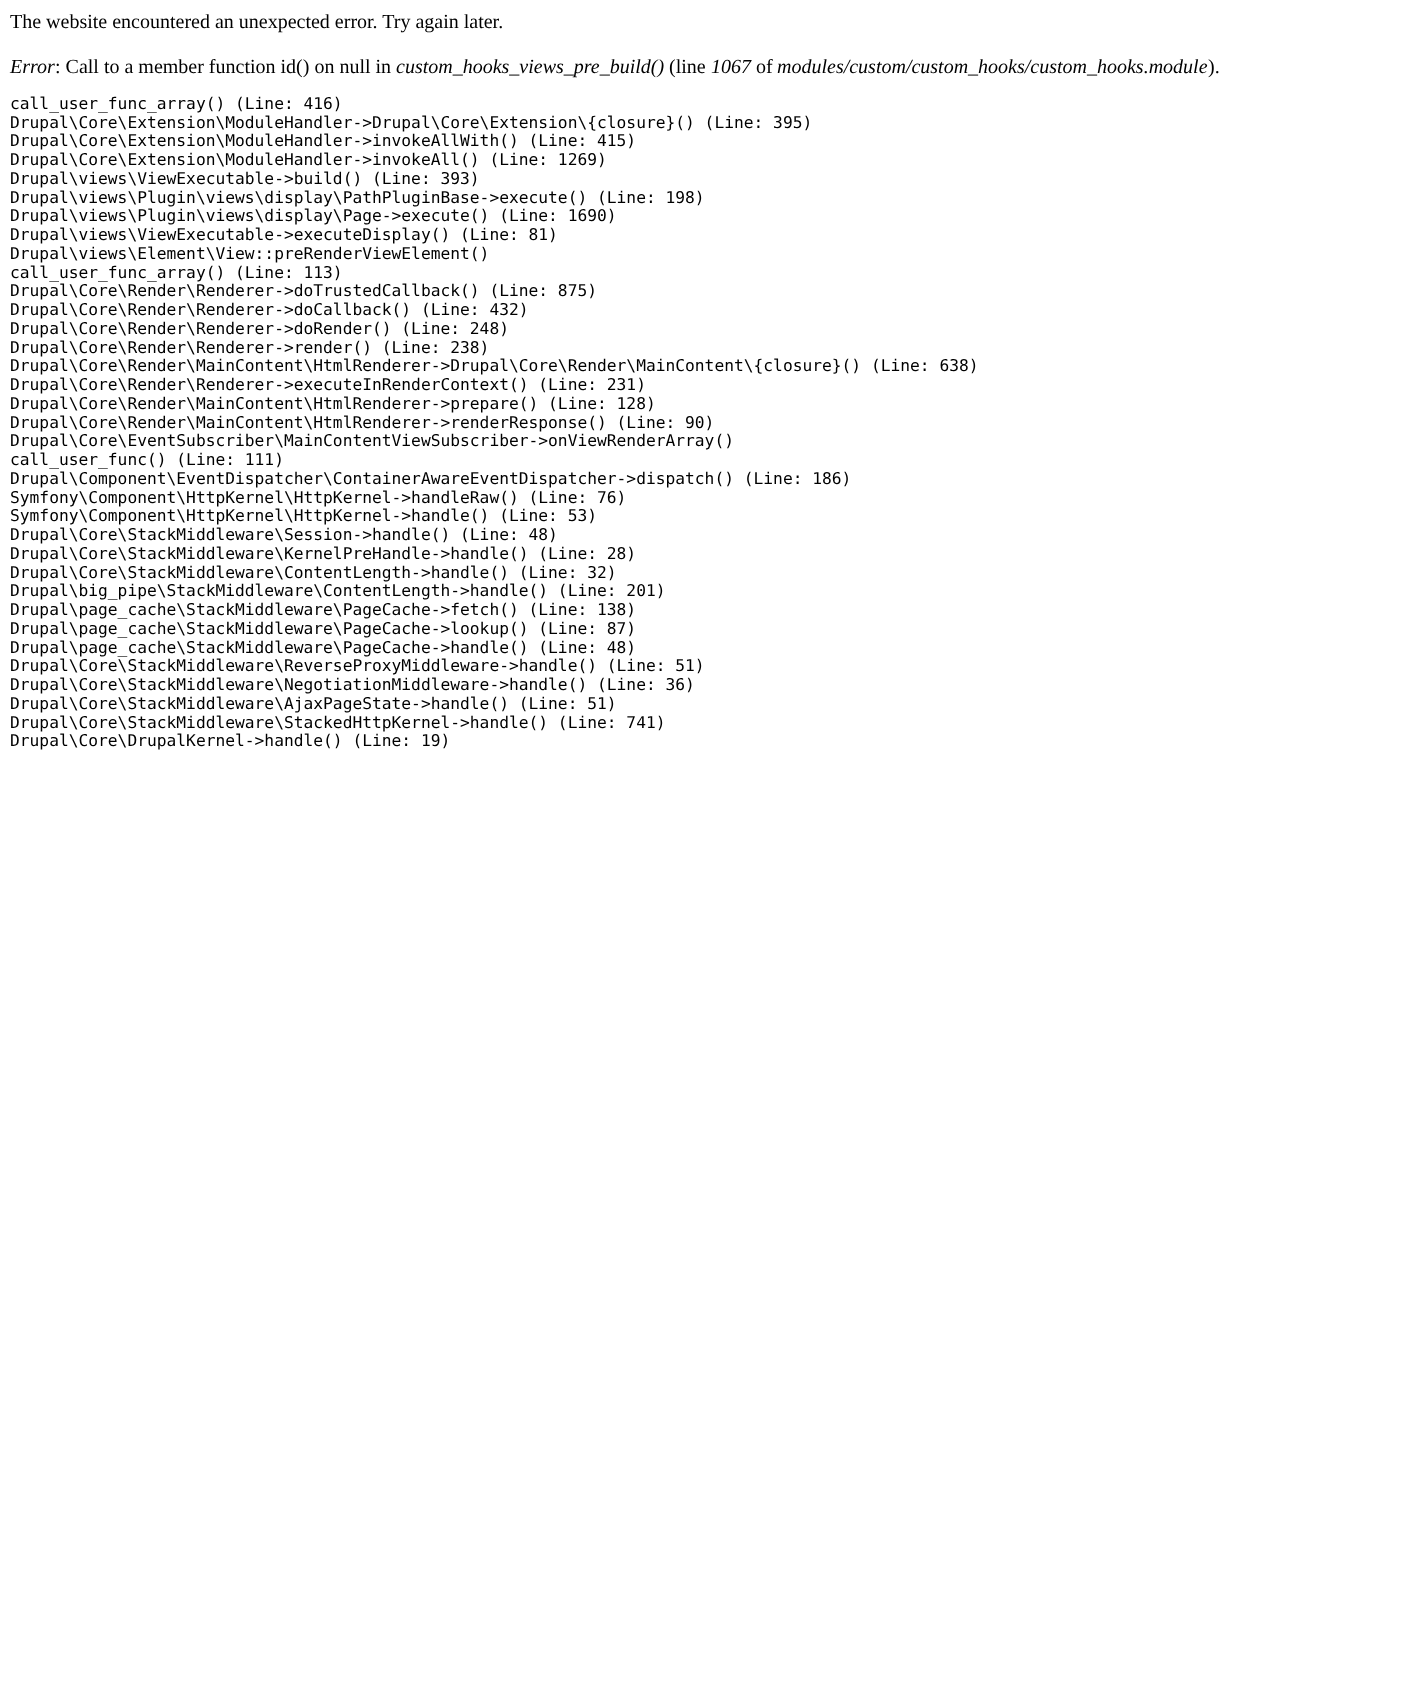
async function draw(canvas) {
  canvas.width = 1406
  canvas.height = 1684
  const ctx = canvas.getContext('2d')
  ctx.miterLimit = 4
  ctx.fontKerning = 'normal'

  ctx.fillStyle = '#fff'
  ctx.fillRect(0, 0, 1406, 1684)
  ctx.font = '20px Liberation Serif'
  ctx.fillStyle = '#000'
  ctx.fillText('The website encountered an unexpected error. Try again later.', 10, 28)
  ctx.font = 'italic 20px Liberation Serif'
  ctx.fillText('Error', 10, 73)
  ctx.font = '20px Liberation Serif'
  ctx.fillText(': Call to a member function id() on null in', 55, 73)
  ctx.font = 'italic 20px Liberation Serif'
  ctx.fillText('custom_hooks_views_pre_build()', 396, 73)
  ctx.font = '20px Liberation Serif'
  ctx.fillText('(line', 669, 73)
  ctx.font = 'italic 20px Liberation Serif'
  ctx.fillText('1067', 711, 73)
  ctx.font = '20px Liberation Serif'
  ctx.fillText('of', 756, 73)
  ctx.font = 'italic 20px Liberation Serif'
  ctx.fillText('modules/custom/custom_hooks/custom_hooks.module', 777, 73)
  ctx.font = '20px Liberation Serif'
  ctx.fillText(').', 1208, 73)
  ctx.font = '16.25px DejaVu Sans Mono'
  ctx.fillText('call_user_func_array() (Line: 416)', 10, 109)
  ctx.fillText('Drupal\\Core\\Extension\\ModuleHandler->Drupal\\Core\\Extension\\{closure}() (Line: 395)', 10, 128)
  ctx.fillText('Drupal\\Core\\Extension\\ModuleHandler->invokeAllWith() (Line: 415)', 10, 146)
  ctx.fillText('Drupal\\Core\\Extension\\ModuleHandler->invokeAll() (Line: 1269)', 10, 165)
  ctx.fillText('Drupal\\views\\ViewExecutable->build() (Line: 393)', 10, 184)
  ctx.fillText('Drupal\\views\\Plugin\\views\\display\\PathPluginBase->execute() (Line: 198)', 10, 203)
  ctx.fillText('Drupal\\views\\Plugin\\views\\display\\Page->execute() (Line: 1690)', 10, 221)
  ctx.fillText('Drupal\\views\\ViewExecutable->executeDisplay() (Line: 81)', 10, 240)
  ctx.fillText('Drupal\\views\\Element\\View::preRenderViewElement()', 10, 259)
  ctx.fillText('call_user_func_array() (Line: 113)', 10, 278)
  ctx.fillText('Drupal\\Core\\Render\\Renderer->doTrustedCallback() (Line: 875)', 10, 296)
  ctx.fillText('Drupal\\Core\\Render\\Renderer->doCallback() (Line: 432)', 10, 315)
  ctx.fillText('Drupal\\Core\\Render\\Renderer->doRender() (Line: 248)', 10, 334)
  ctx.fillText('Drupal\\Core\\Render\\Renderer->render() (Line: 238)', 10, 353)
  ctx.fillText('Drupal\\Core\\Render\\MainContent\\HtmlRenderer->Drupal\\Core\\Render\\MainContent\\{closure}() (Line: 638)', 10, 371)
  ctx.fillText('Drupal\\Core\\Render\\Renderer->executeInRenderContext() (Line: 231)', 10, 390)
  ctx.fillText('Drupal\\Core\\Render\\MainContent\\HtmlRenderer->prepare() (Line: 128)', 10, 409)
  ctx.fillText('Drupal\\Core\\Render\\MainContent\\HtmlRenderer->renderResponse() (Line: 90)', 10, 428)
  ctx.fillText('Drupal\\Core\\EventSubscriber\\MainContentViewSubscriber->onViewRenderArray()', 10, 446)
  ctx.fillText('call_user_func() (Line: 111)', 10, 465)
  ctx.fillText('Drupal\\Component\\EventDispatcher\\ContainerAwareEventDispatcher->dispatch() (Line: 186)', 10, 484)
  ctx.fillText('Symfony\\Component\\HttpKernel\\HttpKernel->handleRaw() (Line: 76)', 10, 503)
  ctx.fillText('Symfony\\Component\\HttpKernel\\HttpKernel->handle() (Line: 53)', 10, 521)
  ctx.fillText('Drupal\\Core\\StackMiddleware\\Session->handle() (Line: 48)', 10, 540)
  ctx.fillText('Drupal\\Core\\StackMiddleware\\KernelPreHandle->handle() (Line: 28)', 10, 559)
  ctx.fillText('Drupal\\Core\\StackMiddleware\\ContentLength->handle() (Line: 32)', 10, 578)
  ctx.fillText('Drupal\\big_pipe\\StackMiddleware\\ContentLength->handle() (Line: 201)', 10, 596)
  ctx.fillText('Drupal\\page_cache\\StackMiddleware\\PageCache->fetch() (Line: 138)', 10, 615)
  ctx.fillText('Drupal\\page_cache\\StackMiddleware\\PageCache->lookup() (Line: 87)', 10, 634)
  ctx.fillText('Drupal\\page_cache\\StackMiddleware\\PageCache->handle() (Line: 48)', 10, 653)
  ctx.fillText('Drupal\\Core\\StackMiddleware\\ReverseProxyMiddleware->handle() (Line: 51)', 10, 671)
  ctx.fillText('Drupal\\Core\\StackMiddleware\\NegotiationMiddleware->handle() (Line: 36)', 10, 690)
  ctx.fillText('Drupal\\Core\\StackMiddleware\\AjaxPageState->handle() (Line: 51)', 10, 709)
  ctx.fillText('Drupal\\Core\\StackMiddleware\\StackedHttpKernel->handle() (Line: 741)', 10, 728)
  ctx.fillText('Drupal\\Core\\DrupalKernel->handle() (Line: 19)', 10, 746)
}

draw(document.querySelector('canvas'))
